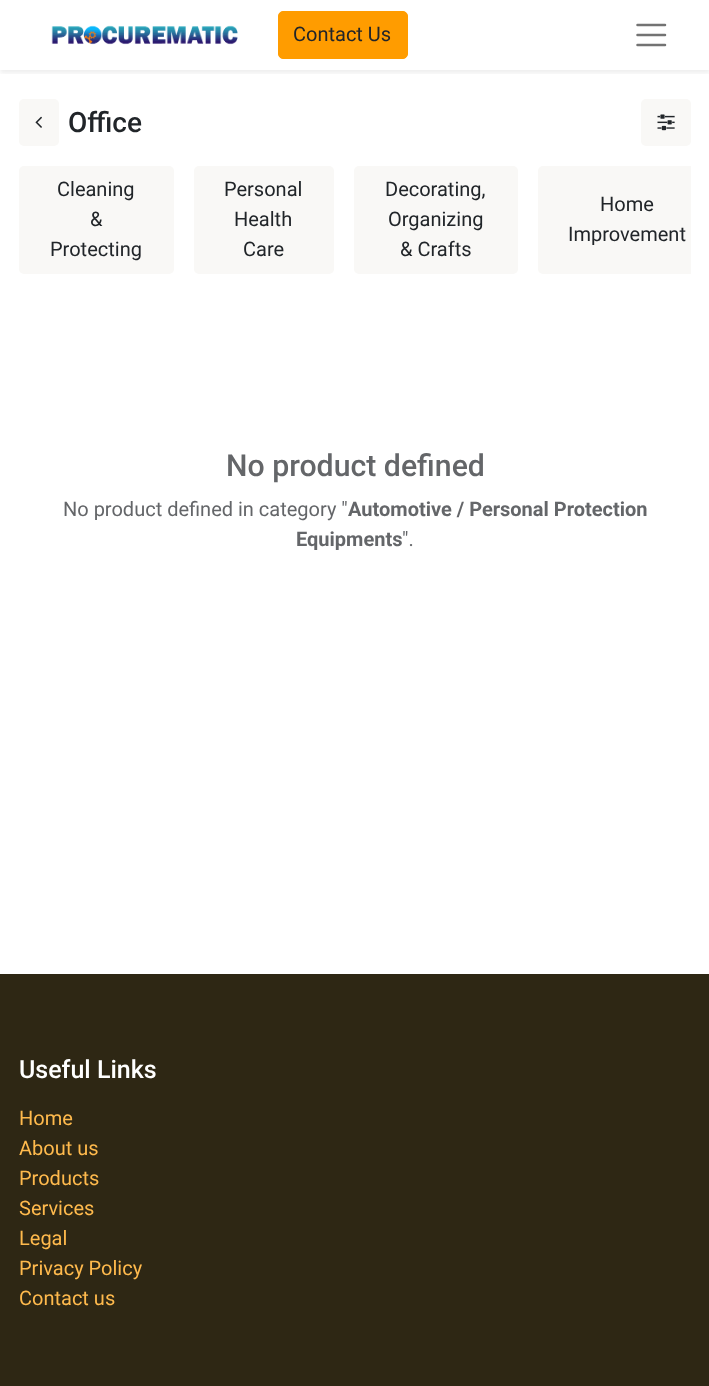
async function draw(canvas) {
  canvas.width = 709
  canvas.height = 1386
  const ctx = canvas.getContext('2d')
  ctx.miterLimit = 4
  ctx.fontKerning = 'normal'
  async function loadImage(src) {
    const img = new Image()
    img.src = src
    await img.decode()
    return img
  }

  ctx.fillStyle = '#fff'
  ctx.fillRect(0, 0, 709, 1386)
  ctx.save()
  ctx.beginPath()
  ctx.rect(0, 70, 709, 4)
  ctx.clip()
  ctx.fillStyle = '#00000012'
  ctx.filter = 'blur(2.5px)'
  ctx.beginPath()
  ctx.rect(0, 3, 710, 70)
  ctx.fill()
  ctx.filter = 'none'
  ctx.restore()
  ctx.drawImage(await loadImage('image0.png'), 51, 25, 187, 20)
  ctx.fillStyle = '#ff9c00'
  ctx.beginPath()
  ctx.roundRect(278.5, 11.5, 129, 47, 4.5)
  ctx.fill()
  ctx.strokeStyle = '#ff9c00'
  ctx.stroke()
  ctx.font = '20px Roboto'
  ctx.fillStyle = '#212529'
  ctx.fillText('Contact Us', 293, 41)
  ctx.beginPath()
  ctx.moveTo(637.5, 25)
  ctx.lineTo(665, 25)
  ctx.moveTo(637.5, 35)
  ctx.lineTo(665, 35)
  ctx.moveTo(637.5, 45)
  ctx.lineTo(665, 45)
  ctx.strokeStyle = '#737373'
  ctx.lineWidth = 2.5
  ctx.lineCap = 'round'
  ctx.stroke()
  ctx.fillStyle = '#f9f8f6'
  ctx.beginPath()
  ctx.roundRect(19, 99, 40, 47, 5)
  ctx.fill()
  ctx.drawImage(await loadImage('image1.png'), 35, 116, 7, 12)
  ctx.font = '500 28px Roboto'
  ctx.fillStyle = '#212529'
  ctx.fillText('Office', 68, 132)
  ctx.fillStyle = '#f9f8f6'
  ctx.beginPath()
  ctx.roundRect(641, 99, 50, 47, 5)
  ctx.fill()
  ctx.drawImage(await loadImage('image2.png'), 657, 114, 18, 17)
  ctx.beginPath()
  ctx.roundRect(19, 166, 155, 108, 5)
  ctx.fill()
  ctx.font = '20px Roboto'
  ctx.fillStyle = '#212529'
  ctx.fillText('Cleaning', 57, 196)
  ctx.fillText('&', 90, 226)
  ctx.fillText('Protecting', 50, 256)
  ctx.fillStyle = '#f9f8f6'
  ctx.beginPath()
  ctx.roundRect(194, 166, 140, 108, 5)
  ctx.fill()
  ctx.fillStyle = '#212529'
  ctx.fillText('Personal', 224, 196)
  ctx.fillText('Health', 234, 226)
  ctx.fillText('Care', 243, 256)
  ctx.fillStyle = '#f9f8f6'
  ctx.beginPath()
  ctx.roundRect(354, 166, 164, 108, 5)
  ctx.fill()
  ctx.fillStyle = '#212529'
  ctx.fillText('Decorating,', 385, 196)
  ctx.fillText('Organizing', 388, 226)
  ctx.fillText('& Crafts', 400, 256)
  ctx.fillStyle = '#f9f8f6'
  ctx.beginPath()
  ctx.roundRect(538, 166, 153, 108, [5, 0, 0, 5])
  ctx.fill()
  ctx.fillStyle = '#212529'
  ctx.fillText('Home', 600, 211)
  ctx.fillText('Improvement', 568, 241)
  ctx.font = '500 30.25px Roboto'
  ctx.fillStyle = '#646669'
  ctx.fillText('No product defined', 226, 476)
  ctx.font = '20px Roboto'
  ctx.fillText('No product defined in category "', 63, 516)
  ctx.font = 'bold 20px Roboto'
  ctx.fillText('Automotive / Personal Protection', 348, 516)
  ctx.fillText('Equipments', 296, 546)
  ctx.font = '20px Roboto'
  ctx.fillText('".', 402, 546)
  ctx.fillStyle = '#2e2714'
  ctx.fillRect(0, 974, 709, 412)
  ctx.font = '500 25px Roboto'
  ctx.fillStyle = '#fff'
  ctx.fillText('Useful Links', 19, 1078)
  ctx.font = '20px Roboto'
  ctx.fillStyle = '#ffba4d'
  ctx.fillText('Home', 19, 1125)
  ctx.fillText('About us', 19, 1155)
  ctx.fillText('Products', 19, 1185)
  ctx.fillText('Services', 19, 1215)
  ctx.fillText('Legal', 19, 1245)
  ctx.fillText('Privacy Policy', 19, 1275)
  ctx.fillText('Contact us', 19, 1305)
}

draw(document.querySelector('canvas'))
